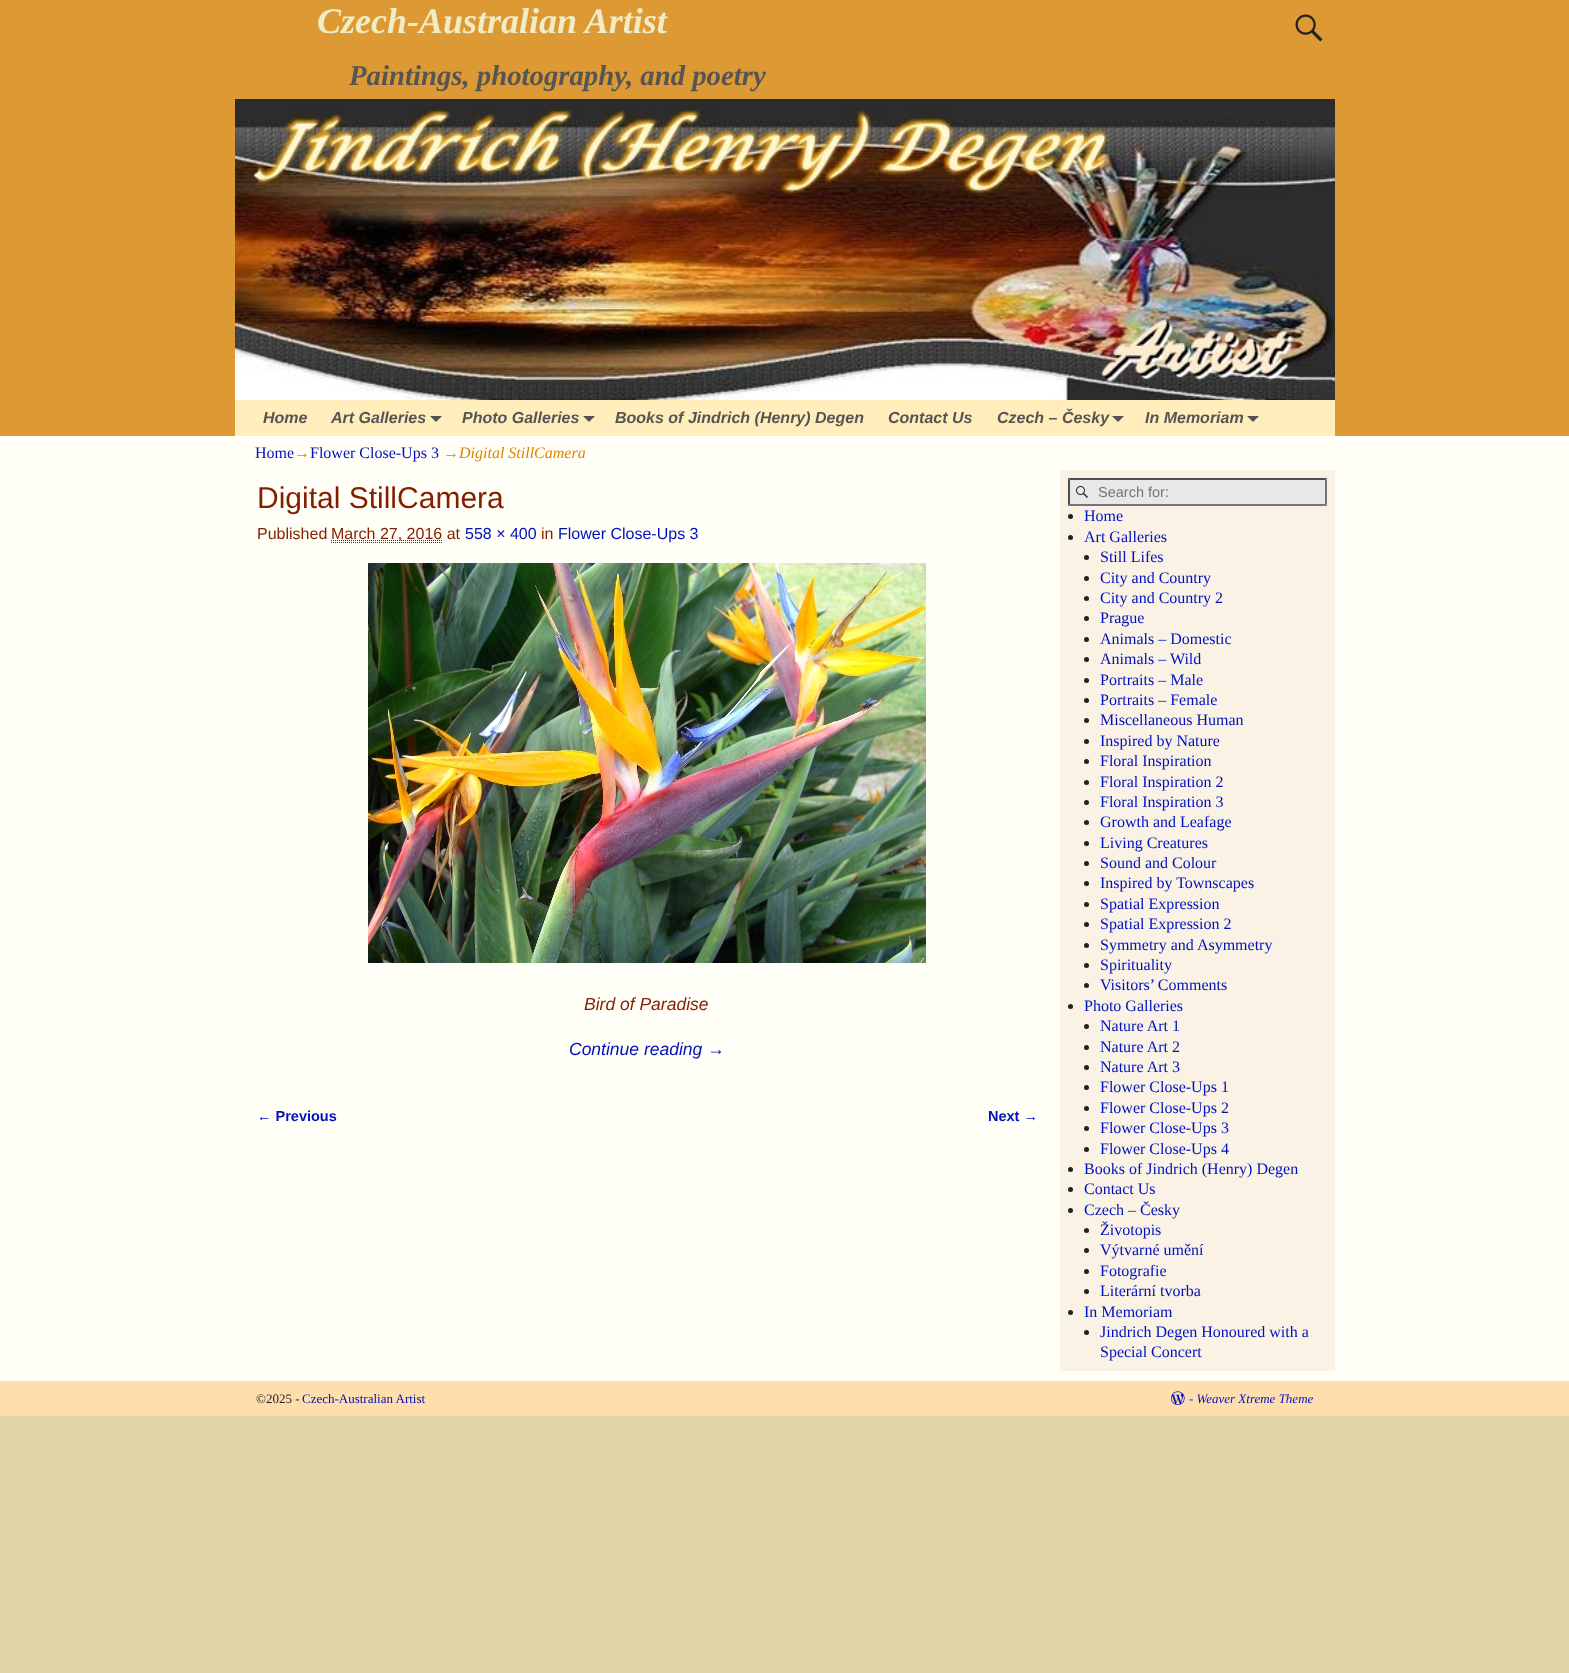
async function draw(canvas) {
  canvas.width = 1569
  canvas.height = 1673
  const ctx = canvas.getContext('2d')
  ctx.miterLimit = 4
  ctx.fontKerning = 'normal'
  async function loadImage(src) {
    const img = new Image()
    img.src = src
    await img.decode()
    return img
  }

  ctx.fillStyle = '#e3d5a7'
  ctx.fillRect(0, 0, 1569, 1673)
  ctx.fillStyle = '#d93'
  ctx.fillRect(0, 0, 1569, 436)
  ctx.font = 'italic bold 36px Liberation Serif'
  ctx.fillStyle = '#efecc6'
  ctx.fillText('Czech-Australian Artist', 317, 33)
  ctx.drawImage(await loadImage('image0.png'), 1295, 14, 28, 28)
  ctx.font = 'italic bold 28.75px Liberation Serif'
  ctx.fillStyle = '#555'
  ctx.fillText('Paintings, photography, and poetry', 349, 85)
  ctx.drawImage(await loadImage('image1.png'), 235, 99, 1100, 301)
  ctx.fillStyle = '#feb'
  ctx.fillRect(235, 400, 1100, 36)
  ctx.font = 'italic bold 16px Liberation Sans'
  ctx.fillStyle = '#555'
  ctx.fillText('Home', 263, 423)
  ctx.fillText('Art Galleries', 331, 423)
  ctx.fillStyle = '#525252'
  ctx.beginPath()
  ctx.moveTo(430, 416)
  ctx.lineTo(442, 416)
  ctx.lineTo(436, 422)
  ctx.closePath()
  ctx.fill()
  ctx.fillStyle = '#555'
  ctx.fillText('Photo Galleries', 462, 423)
  ctx.fillStyle = '#525252'
  ctx.beginPath()
  ctx.moveTo(583, 416)
  ctx.lineTo(595, 416)
  ctx.lineTo(589, 422)
  ctx.closePath()
  ctx.fill()
  ctx.fillStyle = '#555'
  ctx.fillText('Books of Jindrich (Henry) Degen', 615, 423)
  ctx.fillText('Contact Us', 888, 423)
  ctx.fillText('Czech – Česky', 997, 423)
  ctx.fillStyle = '#525252'
  ctx.beginPath()
  ctx.moveTo(1112, 416)
  ctx.lineTo(1124, 416)
  ctx.lineTo(1118, 422)
  ctx.closePath()
  ctx.fill()
  ctx.fillStyle = '#555'
  ctx.fillText('In Memoriam', 1145, 423)
  ctx.fillStyle = '#525252'
  ctx.beginPath()
  ctx.moveTo(1247, 416)
  ctx.lineTo(1259, 416)
  ctx.lineTo(1253, 422)
  ctx.closePath()
  ctx.fill()
  ctx.fillStyle = '#fffff7'
  ctx.fillRect(0, 436, 1569, 945)
  ctx.font = '16px Liberation Serif'
  ctx.fillStyle = '#01b'
  ctx.fillText('Home', 255, 458)
  ctx.fillStyle = '#dd8500'
  ctx.fillText('→', 294, 458)
  ctx.fillStyle = '#01b'
  ctx.fillText('Flower Close-Ups 3', 310, 458)
  ctx.fillStyle = '#dd8500'
  ctx.fillText('→', 443, 458)
  ctx.font = 'italic 16px Liberation Serif'
  ctx.fillText('Digital StillCamera', 459, 458)
  ctx.font = '30px Liberation Sans'
  ctx.fillStyle = '#841e00'
  ctx.fillText('Digital StillCamera', 257, 508)
  ctx.font = '16px Liberation Sans'
  ctx.fillText('Published', 257, 539)
  ctx.beginPath()
  ctx.moveTo(331, 540.5)
  ctx.lineTo(442.5, 540.5)
  ctx.strokeStyle = '#841e00'
  ctx.setLineDash([1, 1])
  ctx.stroke()
  ctx.fillText('March 27, 2016 at', 331, 539)
  ctx.beginPath()
  ctx.moveTo(331, 542.5)
  ctx.lineTo(442, 542.5)
  ctx.stroke()
  ctx.fillStyle = '#01b'
  ctx.fillText('558 × 400', 465, 539)
  ctx.fillStyle = '#841e00'
  ctx.fillText('in', 541, 539)
  ctx.fillStyle = '#01b'
  ctx.fillText('Flower Close-Ups 3', 558, 539)
  ctx.drawImage(await loadImage('image2.png'), 368, 563, 558, 400)
  ctx.font = 'italic 17.5px Liberation Sans'
  ctx.fillStyle = '#841e00'
  ctx.fillText('Bird of Paradise', 584, 1010)
  ctx.fillStyle = '#01b'
  ctx.fillText('Continue reading →', 569, 1055)
  ctx.font = 'bold 14.5px Liberation Sans'
  ctx.fillText('← Previous', 257, 1121)
  ctx.fillText('Next →', 988, 1121)
  ctx.fillStyle = '#f9f2e5'
  ctx.fillRect(1060, 470, 275, 901)
  ctx.fillStyle = '#e8e8e8'
  ctx.fillRect(1068, 478, 259, 28)
  ctx.drawImage(await loadImage('image3.png'), 1076, 486, 12, 12)
  ctx.fillStyle = '#4f4f4f'
  ctx.beginPath()
  ctx.moveTo(1068, 478)
  ctx.lineTo(1327, 478)
  ctx.lineTo(1325, 480)
  ctx.lineTo(1070, 480)
  ctx.closePath()
  ctx.fill()
  ctx.fillStyle = '#767676'
  ctx.beginPath()
  ctx.moveTo(1327, 478)
  ctx.lineTo(1327, 506)
  ctx.lineTo(1325, 504)
  ctx.lineTo(1325, 480)
  ctx.closePath()
  ctx.fill()
  ctx.beginPath()
  ctx.moveTo(1327, 506)
  ctx.lineTo(1068, 506)
  ctx.lineTo(1070, 504)
  ctx.lineTo(1325, 504)
  ctx.closePath()
  ctx.fill()
  ctx.fillStyle = '#4f4f4f'
  ctx.beginPath()
  ctx.moveTo(1068, 506)
  ctx.lineTo(1068, 478)
  ctx.lineTo(1070, 480)
  ctx.lineTo(1070, 504)
  ctx.closePath()
  ctx.fill()
  ctx.font = '14.5px Liberation Sans'
  ctx.fillStyle = '#757575'
  ctx.fillText('Search for:', 1098, 497)
  ctx.fillStyle = '#222'
  ctx.beginPath()
  ctx.arc(1070.5, 516.5, 2.5, 0, 2 * Math.PI)
  ctx.fill()
  ctx.font = '16px Liberation Serif'
  ctx.fillStyle = '#01b'
  ctx.fillText('Home', 1084, 521)
  ctx.fillStyle = '#222'
  ctx.beginPath()
  ctx.arc(1070.5, 537.5, 2.5, 0, 2 * Math.PI)
  ctx.fill()
  ctx.fillStyle = '#01b'
  ctx.fillText('Art Galleries', 1084, 542)
  ctx.fillStyle = '#222'
  ctx.beginPath()
  ctx.arc(1086.5, 557.5, 2.5, 0, 2 * Math.PI)
  ctx.fill()
  ctx.fillStyle = '#01b'
  ctx.fillText('Still Lifes', 1100, 562)
  ctx.fillStyle = '#222'
  ctx.beginPath()
  ctx.arc(1086.5, 578.5, 2.5, 0, 2 * Math.PI)
  ctx.fill()
  ctx.fillStyle = '#01b'
  ctx.fillText('City and Country', 1100, 583)
  ctx.fillStyle = '#222'
  ctx.beginPath()
  ctx.arc(1086.5, 598.5, 2.5, 0, 2 * Math.PI)
  ctx.fill()
  ctx.fillStyle = '#01b'
  ctx.fillText('City and Country 2', 1100, 603)
  ctx.fillStyle = '#222'
  ctx.beginPath()
  ctx.arc(1086.5, 618.5, 2.5, 0, 2 * Math.PI)
  ctx.fill()
  ctx.fillStyle = '#01b'
  ctx.fillText('Prague', 1100, 623)
  ctx.fillStyle = '#222'
  ctx.beginPath()
  ctx.arc(1086.5, 639.5, 2.5, 0, 2 * Math.PI)
  ctx.fill()
  ctx.fillStyle = '#01b'
  ctx.fillText('Animals – Domestic', 1100, 644)
  ctx.fillStyle = '#222'
  ctx.beginPath()
  ctx.arc(1086.5, 659.5, 2.5, 0, 2 * Math.PI)
  ctx.fill()
  ctx.fillStyle = '#01b'
  ctx.fillText('Animals – Wild', 1100, 664)
  ctx.fillStyle = '#222'
  ctx.beginPath()
  ctx.arc(1086.5, 680.5, 2.5, 0, 2 * Math.PI)
  ctx.fill()
  ctx.fillStyle = '#01b'
  ctx.fillText('Portraits – Male', 1100, 685)
  ctx.fillStyle = '#222'
  ctx.beginPath()
  ctx.arc(1086.5, 700.5, 2.5, 0, 2 * Math.PI)
  ctx.fill()
  ctx.fillStyle = '#01b'
  ctx.fillText('Portraits – Female', 1100, 705)
  ctx.fillStyle = '#222'
  ctx.beginPath()
  ctx.arc(1086.5, 720.5, 2.5, 0, 2 * Math.PI)
  ctx.fill()
  ctx.fillStyle = '#01b'
  ctx.fillText('Miscellaneous Human', 1100, 725)
  ctx.fillStyle = '#222'
  ctx.beginPath()
  ctx.arc(1086.5, 741.5, 2.5, 0, 2 * Math.PI)
  ctx.fill()
  ctx.fillStyle = '#01b'
  ctx.fillText('Inspired by Nature', 1100, 746)
  ctx.fillStyle = '#222'
  ctx.beginPath()
  ctx.arc(1086.5, 761.5, 2.5, 0, 2 * Math.PI)
  ctx.fill()
  ctx.fillStyle = '#01b'
  ctx.fillText('Floral Inspiration', 1100, 766)
  ctx.fillStyle = '#222'
  ctx.beginPath()
  ctx.arc(1086.5, 782.5, 2.5, 0, 2 * Math.PI)
  ctx.fill()
  ctx.fillStyle = '#01b'
  ctx.fillText('Floral Inspiration 2', 1100, 787)
  ctx.fillStyle = '#222'
  ctx.beginPath()
  ctx.arc(1086.5, 802.5, 2.5, 0, 2 * Math.PI)
  ctx.fill()
  ctx.fillStyle = '#01b'
  ctx.fillText('Floral Inspiration 3', 1100, 807)
  ctx.fillStyle = '#222'
  ctx.beginPath()
  ctx.arc(1086.5, 822.5, 2.5, 0, 2 * Math.PI)
  ctx.fill()
  ctx.fillStyle = '#01b'
  ctx.fillText('Growth and Leafage', 1100, 827)
  ctx.fillStyle = '#222'
  ctx.beginPath()
  ctx.arc(1086.5, 843.5, 2.5, 0, 2 * Math.PI)
  ctx.fill()
  ctx.fillStyle = '#01b'
  ctx.fillText('Living Creatures', 1100, 848)
  ctx.fillStyle = '#222'
  ctx.beginPath()
  ctx.arc(1086.5, 863.5, 2.5, 0, 2 * Math.PI)
  ctx.fill()
  ctx.fillStyle = '#01b'
  ctx.fillText('Sound and Colour', 1100, 868)
  ctx.fillStyle = '#222'
  ctx.beginPath()
  ctx.arc(1086.5, 883.5, 2.5, 0, 2 * Math.PI)
  ctx.fill()
  ctx.fillStyle = '#01b'
  ctx.fillText('Inspired by Townscapes', 1100, 888)
  ctx.fillStyle = '#222'
  ctx.beginPath()
  ctx.arc(1086.5, 904.5, 2.5, 0, 2 * Math.PI)
  ctx.fill()
  ctx.fillStyle = '#01b'
  ctx.fillText('Spatial Expression', 1100, 909)
  ctx.fillStyle = '#222'
  ctx.beginPath()
  ctx.arc(1086.5, 924.5, 2.5, 0, 2 * Math.PI)
  ctx.fill()
  ctx.fillStyle = '#01b'
  ctx.fillText('Spatial Expression 2', 1100, 929)
  ctx.fillStyle = '#222'
  ctx.beginPath()
  ctx.arc(1086.5, 945.5, 2.5, 0, 2 * Math.PI)
  ctx.fill()
  ctx.fillStyle = '#01b'
  ctx.fillText('Symmetry and Asymmetry', 1100, 950)
  ctx.fillStyle = '#222'
  ctx.beginPath()
  ctx.arc(1086.5, 965.5, 2.5, 0, 2 * Math.PI)
  ctx.fill()
  ctx.fillStyle = '#01b'
  ctx.fillText('Spirituality', 1100, 970)
  ctx.fillStyle = '#222'
  ctx.beginPath()
  ctx.arc(1086.5, 985.5, 2.5, 0, 2 * Math.PI)
  ctx.fill()
  ctx.fillStyle = '#01b'
  ctx.fillText('Visitors’ Comments', 1100, 990)
  ctx.fillStyle = '#222'
  ctx.beginPath()
  ctx.arc(1070.5, 1006.5, 2.5, 0, 2 * Math.PI)
  ctx.fill()
  ctx.fillStyle = '#01b'
  ctx.fillText('Photo Galleries', 1084, 1011)
  ctx.fillStyle = '#222'
  ctx.beginPath()
  ctx.arc(1086.5, 1026.5, 2.5, 0, 2 * Math.PI)
  ctx.fill()
  ctx.fillStyle = '#01b'
  ctx.fillText('Nature Art 1', 1100, 1031)
  ctx.fillStyle = '#222'
  ctx.beginPath()
  ctx.arc(1086.5, 1047.5, 2.5, 0, 2 * Math.PI)
  ctx.fill()
  ctx.fillStyle = '#01b'
  ctx.fillText('Nature Art 2', 1100, 1052)
  ctx.fillStyle = '#222'
  ctx.beginPath()
  ctx.arc(1086.5, 1067.5, 2.5, 0, 2 * Math.PI)
  ctx.fill()
  ctx.fillStyle = '#01b'
  ctx.fillText('Nature Art 3', 1100, 1072)
  ctx.fillStyle = '#222'
  ctx.beginPath()
  ctx.arc(1086.5, 1087.5, 2.5, 0, 2 * Math.PI)
  ctx.fill()
  ctx.fillStyle = '#01b'
  ctx.fillText('Flower Close-Ups 1', 1100, 1092)
  ctx.fillStyle = '#222'
  ctx.beginPath()
  ctx.arc(1086.5, 1108.5, 2.5, 0, 2 * Math.PI)
  ctx.fill()
  ctx.fillStyle = '#01b'
  ctx.fillText('Flower Close-Ups 2', 1100, 1113)
  ctx.fillStyle = '#222'
  ctx.beginPath()
  ctx.arc(1086.5, 1128.5, 2.5, 0, 2 * Math.PI)
  ctx.fill()
  ctx.fillStyle = '#01b'
  ctx.fillText('Flower Close-Ups 3', 1100, 1133)
  ctx.fillStyle = '#222'
  ctx.beginPath()
  ctx.arc(1086.5, 1149.5, 2.5, 0, 2 * Math.PI)
  ctx.fill()
  ctx.fillStyle = '#01b'
  ctx.fillText('Flower Close-Ups 4', 1100, 1154)
  ctx.fillStyle = '#222'
  ctx.beginPath()
  ctx.arc(1070.5, 1169.5, 2.5, 0, 2 * Math.PI)
  ctx.fill()
  ctx.fillStyle = '#01b'
  ctx.fillText('Books of Jindrich (Henry) Degen', 1084, 1174)
  ctx.fillStyle = '#222'
  ctx.beginPath()
  ctx.arc(1070.5, 1189.5, 2.5, 0, 2 * Math.PI)
  ctx.fill()
  ctx.fillStyle = '#01b'
  ctx.fillText('Contact Us', 1084, 1194)
  ctx.fillStyle = '#222'
  ctx.beginPath()
  ctx.arc(1070.5, 1210.5, 2.5, 0, 2 * Math.PI)
  ctx.fill()
  ctx.fillStyle = '#01b'
  ctx.fillText('Czech – Česky', 1084, 1215)
  ctx.fillStyle = '#222'
  ctx.beginPath()
  ctx.arc(1086.5, 1230.5, 2.5, 0, 2 * Math.PI)
  ctx.fill()
  ctx.fillStyle = '#01b'
  ctx.fillText('Životopis', 1100, 1235)
  ctx.fillStyle = '#222'
  ctx.beginPath()
  ctx.arc(1086.5, 1250.5, 2.5, 0, 2 * Math.PI)
  ctx.fill()
  ctx.fillStyle = '#01b'
  ctx.fillText('Výtvarné umění', 1100, 1255)
  ctx.fillStyle = '#222'
  ctx.beginPath()
  ctx.arc(1086.5, 1271.5, 2.5, 0, 2 * Math.PI)
  ctx.fill()
  ctx.fillStyle = '#01b'
  ctx.fillText('Fotografie', 1100, 1276)
  ctx.fillStyle = '#222'
  ctx.beginPath()
  ctx.arc(1086.5, 1291.5, 2.5, 0, 2 * Math.PI)
  ctx.fill()
  ctx.fillStyle = '#01b'
  ctx.fillText('Literární tvorba', 1100, 1296)
  ctx.fillStyle = '#222'
  ctx.beginPath()
  ctx.arc(1070.5, 1312.5, 2.5, 0, 2 * Math.PI)
  ctx.fill()
  ctx.fillStyle = '#01b'
  ctx.fillText('In Memoriam', 1084, 1317)
  ctx.fillStyle = '#222'
  ctx.beginPath()
  ctx.arc(1086.5, 1332.5, 2.5, 0, 2 * Math.PI)
  ctx.fill()
  ctx.fillStyle = '#01b'
  ctx.fillText('Jindrich Degen Honoured with a', 1100, 1337)
  ctx.fillText('Special Concert', 1100, 1357)
  ctx.fillStyle = '#ffdead'
  ctx.fillRect(0, 1381, 1569, 35)
  ctx.font = '13px Liberation Serif'
  ctx.fillStyle = '#222'
  ctx.fillText('©2025 -', 256, 1403)
  ctx.fillStyle = '#01b'
  ctx.fillText('Czech-Australian Artist', 302, 1403)
  ctx.drawImage(await loadImage('image4.png'), 1171, 1391, 14, 14)
  ctx.font = 'italic 13px Liberation Serif'
  ctx.fillText('- Weaver Xtreme Theme', 1189, 1403)
}

draw(document.querySelector('canvas'))
